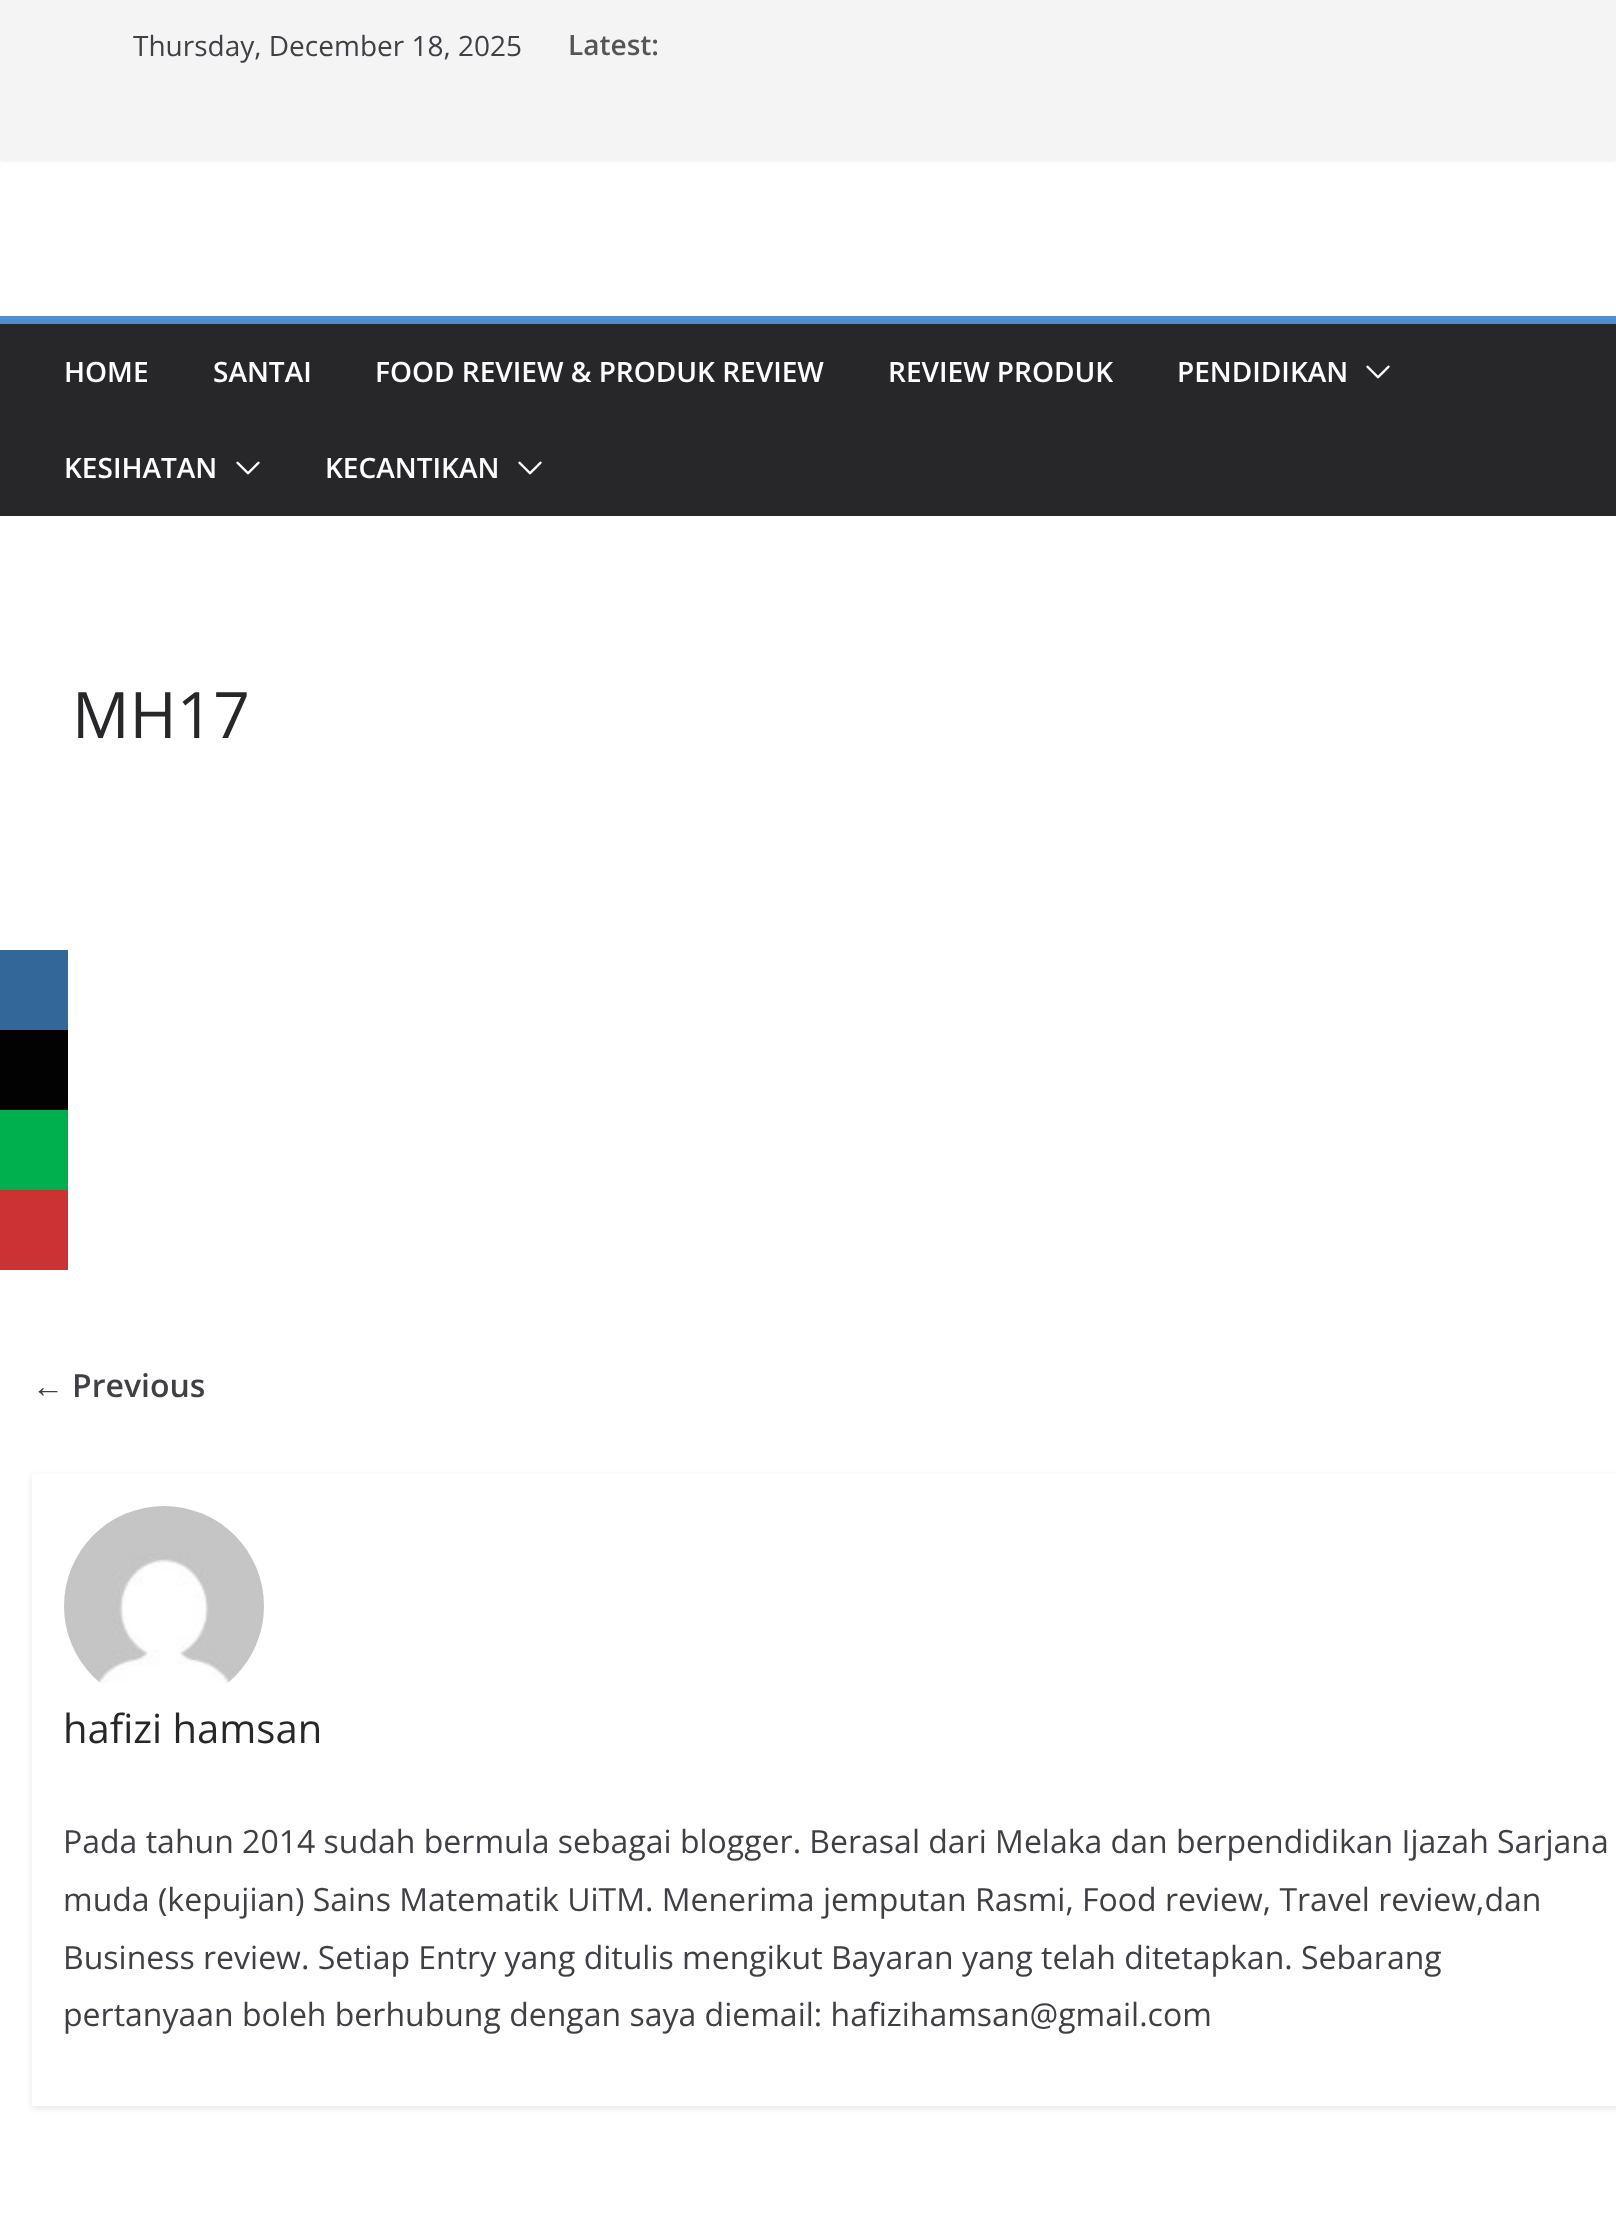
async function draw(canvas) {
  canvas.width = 1616
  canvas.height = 2218
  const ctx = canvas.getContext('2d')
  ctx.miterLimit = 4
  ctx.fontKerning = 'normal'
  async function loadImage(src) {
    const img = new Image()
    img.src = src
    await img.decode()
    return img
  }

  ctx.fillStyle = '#fff'
  ctx.fillRect(0, 0, 1616, 2218)
  ctx.fillStyle = '#369'
  ctx.fillRect(0, 950, 68, 80)
  ctx.fillStyle = '#020202'
  ctx.fillRect(0, 1030, 68, 80)
  ctx.fillStyle = '#00b04e'
  ctx.fillRect(0, 1110, 68, 80)
  ctx.fillStyle = '#cb3233'
  ctx.fillRect(0, 1190, 68, 80)
  ctx.fillStyle = '#0000001a'
  ctx.filter = 'blur(2px)'
  ctx.beginPath()
  ctx.rect(0, 0, 1616, 160)
  ctx.fill()
  ctx.filter = 'none'
  ctx.fillStyle = '#f4f4f5'
  ctx.fillRect(0, 0, 1616, 160)
  ctx.font = '28px Open Sans'
  ctx.fillStyle = '#3f3f46'
  ctx.fillText('Thursday, December 18, 2025', 133, 56)
  ctx.font = '600 28px Open Sans'
  ctx.fillStyle = '#555'
  ctx.fillText('Latest:', 568, 55)
  ctx.fillStyle = '#27272a'
  ctx.fillRect(0, 324, 1616, 192)
  ctx.fillStyle = '#4e8ece'
  ctx.fillRect(0, 316, 1616, 8)
  ctx.fillStyle = '#fff'
  ctx.fillText('HOME', 64, 382)
  ctx.fillText('SANTAI', 213, 382)
  ctx.fillText('FOOD REVIEW & PRODUK REVIEW', 375, 382)
  ctx.fillText('REVIEW PRODUK', 888, 382)
  ctx.fillText('PENDIDIKAN', 1177, 382)
  ctx.drawImage(await loadImage('image0.png'), 1366, 365, 24, 14)
  ctx.fillText('KESIHATAN', 64, 478)
  ctx.drawImage(await loadImage('image0.png'), 236, 461, 24, 14)
  ctx.fillText('KECANTIKAN', 325, 478)
  ctx.drawImage(await loadImage('image0.png'), 518, 461, 24, 14)
  ctx.font = '64px "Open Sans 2"'
  ctx.fillStyle = '#27272a'
  ctx.fillText('MH17', 72, 738)
  ctx.font = 'bold 32px Liberation Serif'
  ctx.fillStyle = '#3f3f46'
  ctx.fillText('←', 32, 1397)
  ctx.font = '600 32px Open Sans'
  ctx.fillText('Previous', 72, 1397)
  ctx.save()
  ctx.beginPath()
  ctx.moveTo(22, 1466)
  ctx.lineTo(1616, 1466)
  ctx.lineTo(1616, 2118)
  ctx.lineTo(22, 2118)
  ctx.closePath()
  ctx.moveTo(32, 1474)
  ctx.lineTo(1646, 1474)
  ctx.lineTo(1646, 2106)
  ctx.lineTo(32, 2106)
  ctx.closePath()
  ctx.clip('evenodd')
  ctx.fillStyle = '#0000001a'
  ctx.filter = 'blur(3px)'
  ctx.beginPath()
  ctx.rect(32, 1476, 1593, 632)
  ctx.fill()
  ctx.filter = 'none'
  ctx.restore()
  ctx.drawImage(await loadImage('image1.png'), 64, 1506, 200, 177)
  ctx.font = '40px "Open Sans 2"'
  ctx.fillStyle = '#27272a'
  ctx.fillText('hafizi hamsan', 63, 1743)
  ctx.font = '32px Open Sans'
  ctx.fillStyle = '#3f3f46'
  ctx.fillText('Pada tahun 2014 sudah bermula sebagai blogger. Berasal dari Melaka dan berpendidikan Ijazah Sarjana', 63, 1853)
  ctx.fillText('muda (kepujian) Sains Matematik UiTM. Menerima jemputan Rasmi, Food review, Travel review,dan', 63, 1911)
  ctx.fillText('Business review. Setiap Entry yang ditulis mengikut Bayaran yang telah ditetapkan. Sebarang', 63, 1969)
  ctx.fillText('pertanyaan boleh berhubung dengan saya diemail: hafizihamsan@gmail.com', 63, 2026)
}

draw(document.querySelector('canvas'))
